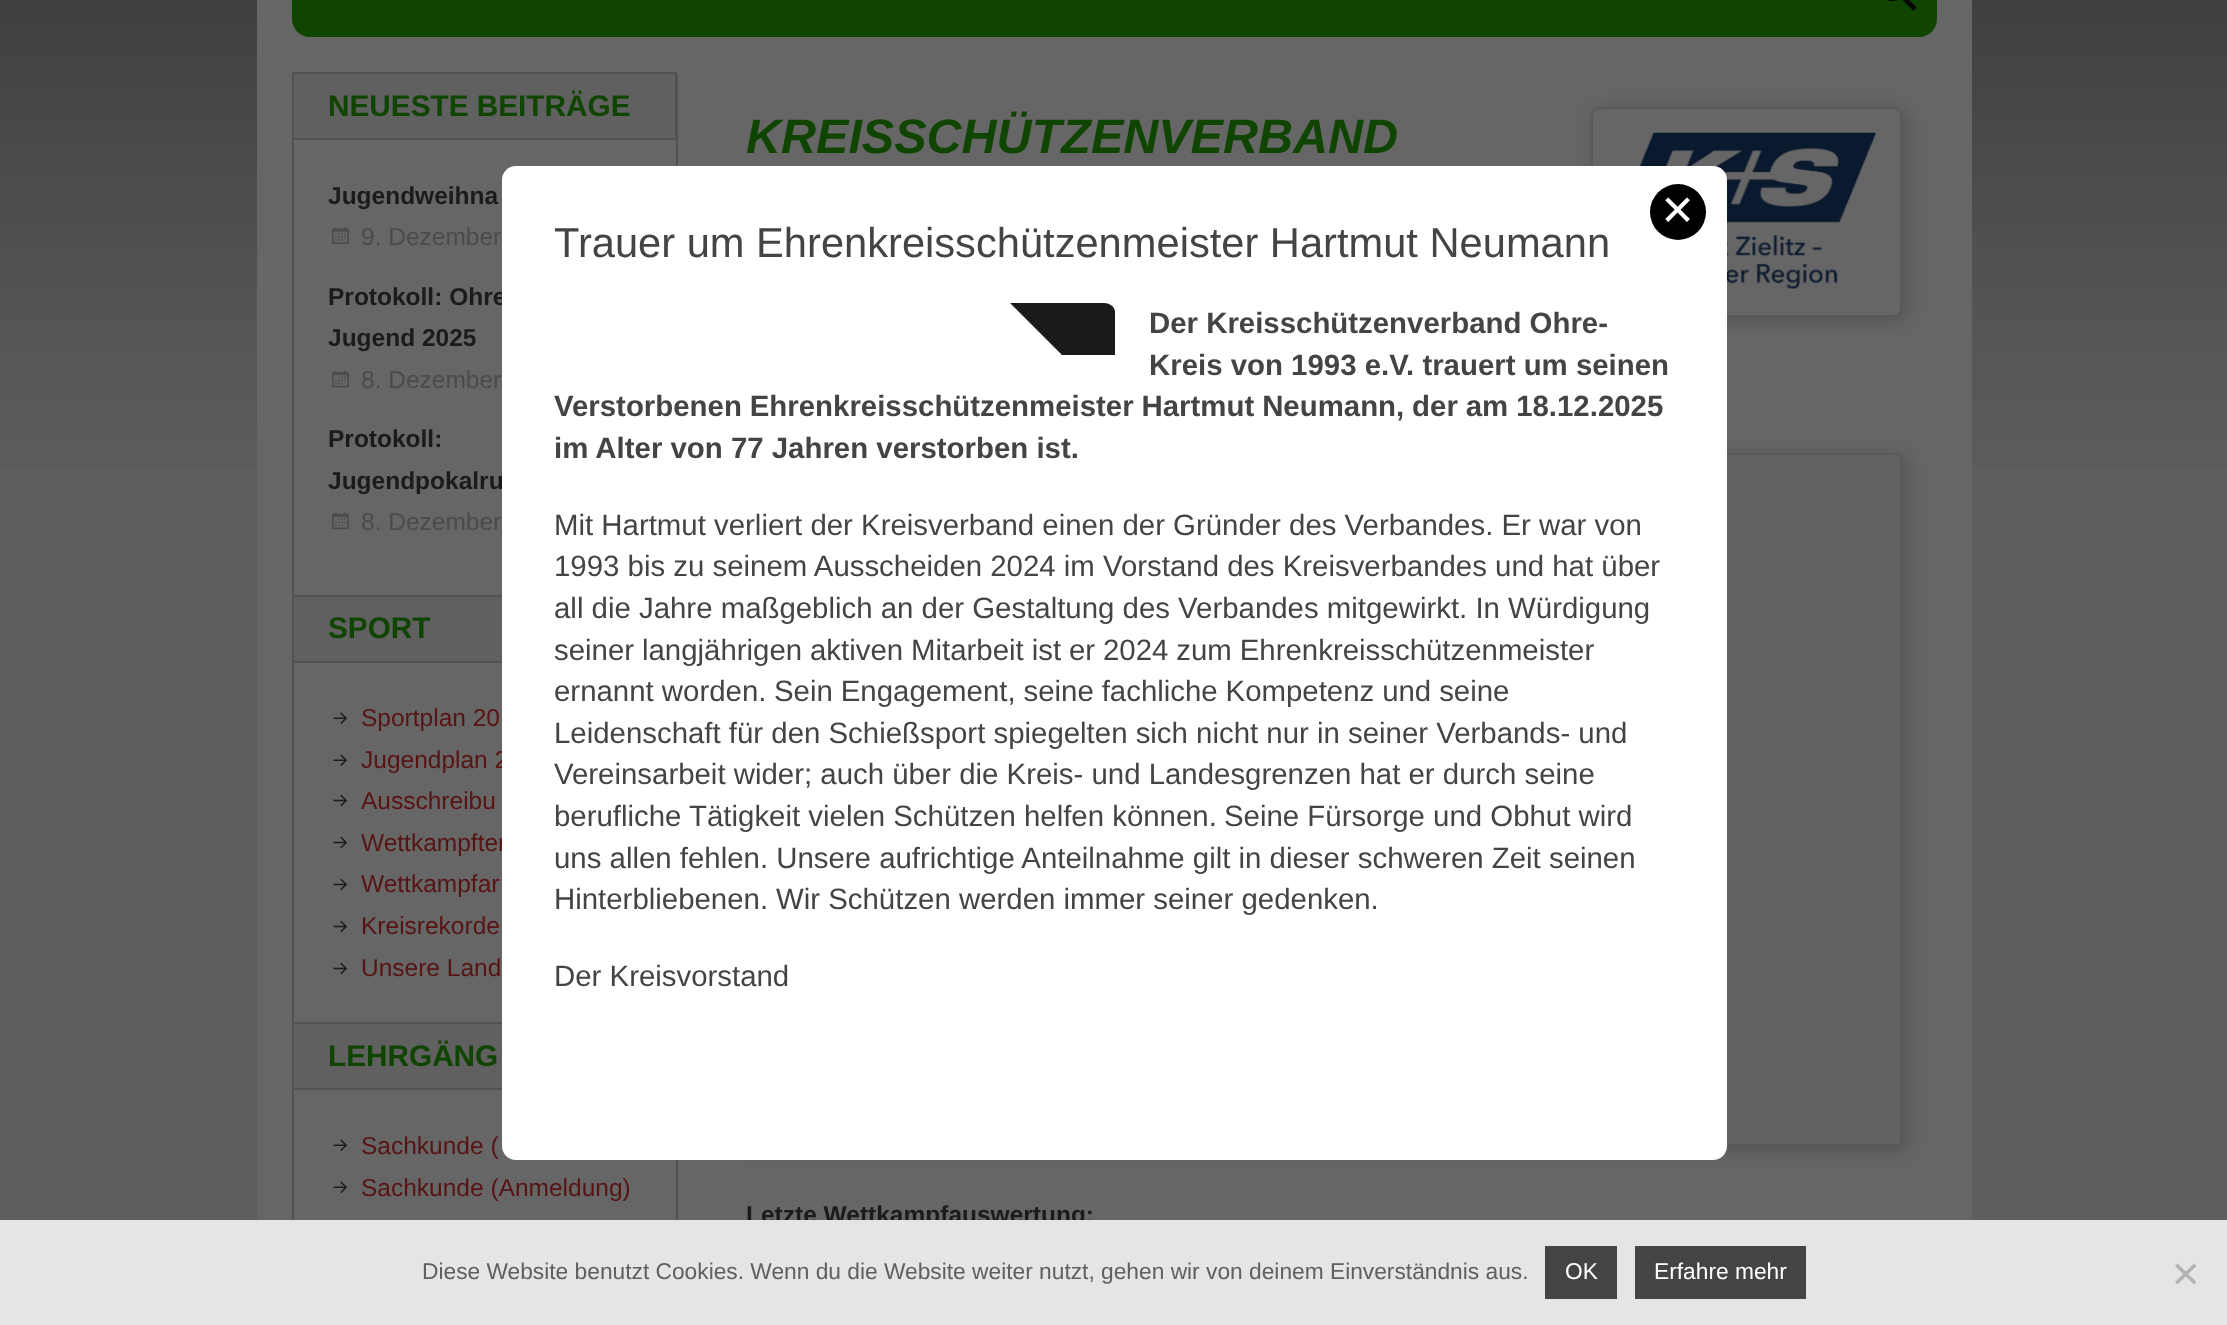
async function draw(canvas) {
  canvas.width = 2227
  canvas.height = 1325
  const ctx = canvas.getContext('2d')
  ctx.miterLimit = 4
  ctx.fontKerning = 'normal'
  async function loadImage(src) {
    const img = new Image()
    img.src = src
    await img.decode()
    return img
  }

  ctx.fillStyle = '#5e5e5e'
  ctx.fillRect(0, 0, 2227, 1325)
  ctx.drawImage(await loadImage('image0.png'), 0, 0, 2227, 467)
  ctx.fillStyle = '#666'
  ctx.fillRect(257, 0, 1715, 1220)
  ctx.fillStyle = '#0f4501'
  ctx.beginPath()
  ctx.moveTo(292, -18)
  ctx.lineTo(1937, -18)
  ctx.lineTo(1937, 19)
  ctx.bezierCurveTo(1937, 29, 1929, 37, 1919, 37)
  ctx.lineTo(310, 37)
  ctx.bezierCurveTo(300, 37, 292, 29, 292, 19)
  ctx.closePath()
  ctx.fill()
  ctx.drawImage(await loadImage('image1.png'), 1886, 0, 31, 11)
  ctx.fillStyle = '#525252'
  ctx.fillRect(676, 74, 2, 92)
  ctx.fillRect(292, 140, 2, 457)
  ctx.fillStyle = '#606060'
  ctx.beginPath()
  ctx.rect(293, 73, 383, 66)
  ctx.fill()
  ctx.strokeStyle = '#525252'
  ctx.lineWidth = 2
  ctx.stroke()
  ctx.font = 'bold 29.75px Liberation Sans'
  ctx.fillStyle = '#0f4501'
  ctx.fillText('NEUESTE BEITRÄGE', 328, 116)
  ctx.font = 'bold 24.5px Liberation Sans'
  ctx.fillStyle = '#1b1b1b'
  ctx.fillText('Jugendweihna', 328, 204)
  ctx.drawImage(await loadImage('image2.png'), 332, 227, 17, 17)
  ctx.font = '24.5px Liberation Sans'
  ctx.fillStyle = '#4b4b4b'
  ctx.fillText('9. Dezember', 361, 245)
  ctx.font = 'bold 24.5px Liberation Sans'
  ctx.fillStyle = '#1b1b1b'
  ctx.fillText('Protokoll: Ohre', 328, 305)
  ctx.fillText('Jugend 2025', 328, 346)
  ctx.drawImage(await loadImage('image3.png'), 332, 370, 17, 18)
  ctx.font = '24.5px Liberation Sans'
  ctx.fillStyle = '#4b4b4b'
  ctx.fillText('8. Dezember', 361, 388)
  ctx.font = 'bold 24.5px Liberation Sans'
  ctx.fillStyle = '#1b1b1b'
  ctx.fillText('Protokoll:', 328, 447)
  ctx.fillText('Jugendpokalru', 328, 489)
  ctx.drawImage(await loadImage('image4.png'), 332, 512, 17, 18)
  ctx.font = '24.5px Liberation Sans'
  ctx.fillStyle = '#4b4b4b'
  ctx.fillText('8. Dezember', 361, 530)
  ctx.fillStyle = '#525252'
  ctx.fillRect(292, 663, 2, 361)
  ctx.fillStyle = '#606060'
  ctx.fillRect(294, 597, 208, 64)
  ctx.strokeRect(293, 596, 383, 66)
  ctx.font = 'bold 29.75px Liberation Sans'
  ctx.fillStyle = '#0f4501'
  ctx.fillText('SPORT', 328, 638)
  ctx.drawImage(await loadImage('image5.png'), 333, 712, 15, 13)
  ctx.font = '24.5px Liberation Sans'
  ctx.fillStyle = '#581414'
  ctx.fillText('Sportplan 20', 361, 726)
  ctx.drawImage(await loadImage('image5.png'), 333, 754, 15, 13)
  ctx.fillText('Jugendplan 2', 361, 768)
  ctx.drawImage(await loadImage('image6.png'), 333, 794, 15, 13)
  ctx.fillText('Ausschreibu', 361, 809)
  ctx.drawImage(await loadImage('image6.png'), 333, 836, 15, 13)
  ctx.fillText('Wettkampfter', 361, 851)
  ctx.drawImage(await loadImage('image6.png'), 333, 878, 15, 13)
  ctx.fillText('Wettkampfar', 361, 892)
  ctx.drawImage(await loadImage('image6.png'), 333, 920, 15, 13)
  ctx.fillText('Kreisrekorde', 361, 934)
  ctx.drawImage(await loadImage('image6.png'), 333, 962, 15, 13)
  ctx.fillText('Unsere Land', 361, 976)
  ctx.fillStyle = '#525252'
  ctx.fillRect(676, 1160, 2, 60)
  ctx.fillRect(292, 1090, 2, 130)
  ctx.fillStyle = '#606060'
  ctx.fillRect(294, 1024, 208, 64)
  ctx.strokeRect(293, 1023, 383, 66)
  ctx.font = 'bold 29.75px Liberation Sans'
  ctx.fillStyle = '#0f4501'
  ctx.fillText('LEHRGÄNG', 328, 1066)
  ctx.drawImage(await loadImage('image5.png'), 333, 1139, 15, 13)
  ctx.font = '24.5px Liberation Sans'
  ctx.fillStyle = '#581414'
  ctx.fillText('Sachkunde (', 361, 1154)
  ctx.drawImage(await loadImage('image5.png'), 333, 1181, 15, 13)
  ctx.fillText('Sachkunde (Anmeldung)', 361, 1196)
  ctx.font = 'italic bold 48.5px Liberation Sans'
  ctx.fillStyle = '#0f4501'
  ctx.fillText('KREISSCHÜTZENVERBAND', 746, 153)
  ctx.fillStyle = '#00000033'
  ctx.filter = 'blur(9px)'
  ctx.beginPath()
  ctx.roundRect(1594, 110, 312, 210, 9)
  ctx.fill()
  ctx.filter = 'none'
  ctx.fillStyle = '#666'
  ctx.beginPath()
  ctx.roundRect(1592, 108, 309, 208, 8)
  ctx.fill()
  ctx.strokeStyle = '#595959'
  ctx.stroke()
  ctx.drawImage(await loadImage('image7.png'), 1639, 132, 237, 157)
  ctx.save()
  ctx.beginPath()
  ctx.moveTo(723, 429)
  ctx.lineTo(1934, 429)
  ctx.lineTo(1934, 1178)
  ctx.lineTo(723, 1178)
  ctx.closePath()
  ctx.moveTo(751, 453)
  ctx.lineTo(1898, 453)
  ctx.bezierCurveTo(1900, 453, 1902, 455, 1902, 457)
  ctx.lineTo(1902, 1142)
  ctx.bezierCurveTo(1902, 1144, 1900, 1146, 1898, 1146)
  ctx.lineTo(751, 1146)
  ctx.bezierCurveTo(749, 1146, 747, 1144, 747, 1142)
  ctx.lineTo(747, 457)
  ctx.bezierCurveTo(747, 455, 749, 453, 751, 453)
  ctx.closePath()
  ctx.clip('evenodd')
  ctx.fillStyle = '#00000033'
  ctx.filter = 'blur(9px)'
  ctx.beginPath()
  ctx.roundRect(751, 457, 1155, 693, 4)
  ctx.fill()
  ctx.filter = 'none'
  ctx.restore()
  ctx.fillStyle = '#54545433'
  ctx.beginPath()
  ctx.roundRect(748, 454, 1153, 691, 3)
  ctx.fill()
  ctx.stroke()
  ctx.font = 'bold 24.5px Liberation Sans'
  ctx.fillStyle = '#1b1b1b'
  ctx.fillText('Letzte Wettkampfauswertung:', 746, 1223)
  ctx.fillStyle = '#fff'
  ctx.beginPath()
  ctx.roundRect(502, 166, 1225, 994, 14)
  ctx.fill()
  ctx.fillStyle = '#000'
  ctx.beginPath()
  ctx.arc(1678, 212, 28, 0, 2 * Math.PI)
  ctx.fill()
  ctx.font = '42px DejaVu Sans'
  ctx.fillStyle = '#fff'
  ctx.fillText('✕', 1660, 225)
  ctx.font = '41.65px Liberation Sans'
  ctx.fillStyle = '#444'
  ctx.fillText('Trauer um Ehrenkreisschützenmeister Hartmut Neumann', 554, 257)
  ctx.fillStyle = '#1a1a1a'
  ctx.beginPath()
  ctx.moveTo(1010, 303)
  ctx.lineTo(1104, 303)
  ctx.bezierCurveTo(1109, 303, 1114, 306, 1115, 311)
  ctx.lineTo(1115, 355)
  ctx.lineTo(1062, 355)
  ctx.closePath()
  ctx.fill()
  ctx.font = 'bold 29.4px Liberation Sans'
  ctx.fillStyle = '#444'
  ctx.fillText('Der Kreisschützenverband Ohre-', 1149, 333)
  ctx.fillText('Kreis von 1993 e.V. trauert um seinen', 1149, 375)
  ctx.wordSpacing = '-0.25px'
  ctx.fillText('Verstorbenen Ehrenkreisschützenmeister Hartmut Neumann, der am 18.12.2025', 554, 416)
  ctx.wordSpacing = '0px'
  ctx.fillText('im Alter von 77 Jahren verstorben ist.', 554, 458)
  ctx.font = '29.4px Liberation Sans'
  ctx.fillText('Mit Hartmut verliert der Kreisverband einen der Gründer des Verbandes. Er war von', 554, 535)
  ctx.fillText('1993 bis zu seinem Ausscheiden 2024 im Vorstand des Kreisverbandes und hat über', 554, 576)
  ctx.fillText('all die Jahre maßgeblich an der Gestaltung des Verbandes mitgewirkt. In Würdigung', 554, 618)
  ctx.wordSpacing = '-0.25px'
  ctx.fillText('seiner langjährigen aktiven Mitarbeit ist er 2024 zum Ehrenkreisschützenmeister', 554, 660)
  ctx.wordSpacing = '0px'
  ctx.fillText('ernannt worden.', 554, 701)
  ctx.wordSpacing = '-0.25px'
  ctx.fillText('Sein Engagement, seine fachliche Kompetenz und seine', 774, 701)
  ctx.wordSpacing = '0px'
  ctx.fillText('Leidenschaft für den Schießsport spiegelten sich nicht nur in seiner Verbands- und', 554, 743)
  ctx.fillText('Vereinsarbeit wider; auch über die Kreis- und Landesgrenzen hat er durch seine', 554, 784)
  ctx.fillText('berufliche Tätigkeit vielen Schützen helfen können.', 554, 826)
  ctx.fillText('Seine Fürsorge und Obhut wird', 1224, 826)
  ctx.fillText('uns allen fehlen. Unsere aufrichtige Anteilnahme gilt in dieser schweren Zeit seinen', 554, 868)
  ctx.fillText('Hinterbliebenen.', 554, 909)
  ctx.fillText('Wir Schützen werden immer seiner gedenken.', 776, 909)
  ctx.fillText('Der Kreisvorstand', 554, 986)
  ctx.fillStyle = '#e5e5e5'
  ctx.fillRect(0, 1220, 2227, 105)
  ctx.font = '22.75px Liberation Sans'
  ctx.fillStyle = '#606060'
  ctx.fillText('Diese Website benutzt Cookies. Wenn du die Website weiter nutzt, gehen wir von deinem Einverständnis aus.', 422, 1279)
  ctx.fillStyle = '#444'
  ctx.fillRect(1545, 1246, 72, 53)
  ctx.fillStyle = '#fff'
  ctx.fillText('OK', 1565, 1279)
  ctx.fillStyle = '#444'
  ctx.fillRect(1635, 1246, 171, 53)
  ctx.fillStyle = '#fff'
  ctx.fillText('Erfahre mehr', 1654, 1279)
  ctx.fillStyle = '#b3b3b3'
  ctx.beginPath()
  ctx.moveTo(2194, 1263.5)
  ctx.lineTo(2196.5, 1266)
  ctx.lineTo(2177.5, 1284.5)
  ctx.lineTo(2175, 1282)
  ctx.closePath()
  ctx.fill()
  ctx.beginPath()
  ctx.moveTo(2175, 1266)
  ctx.lineTo(2177.5, 1263.5)
  ctx.lineTo(2196.5, 1282)
  ctx.lineTo(2194, 1284.5)
  ctx.closePath()
  ctx.fill()
}

draw(document.querySelector('canvas'))
